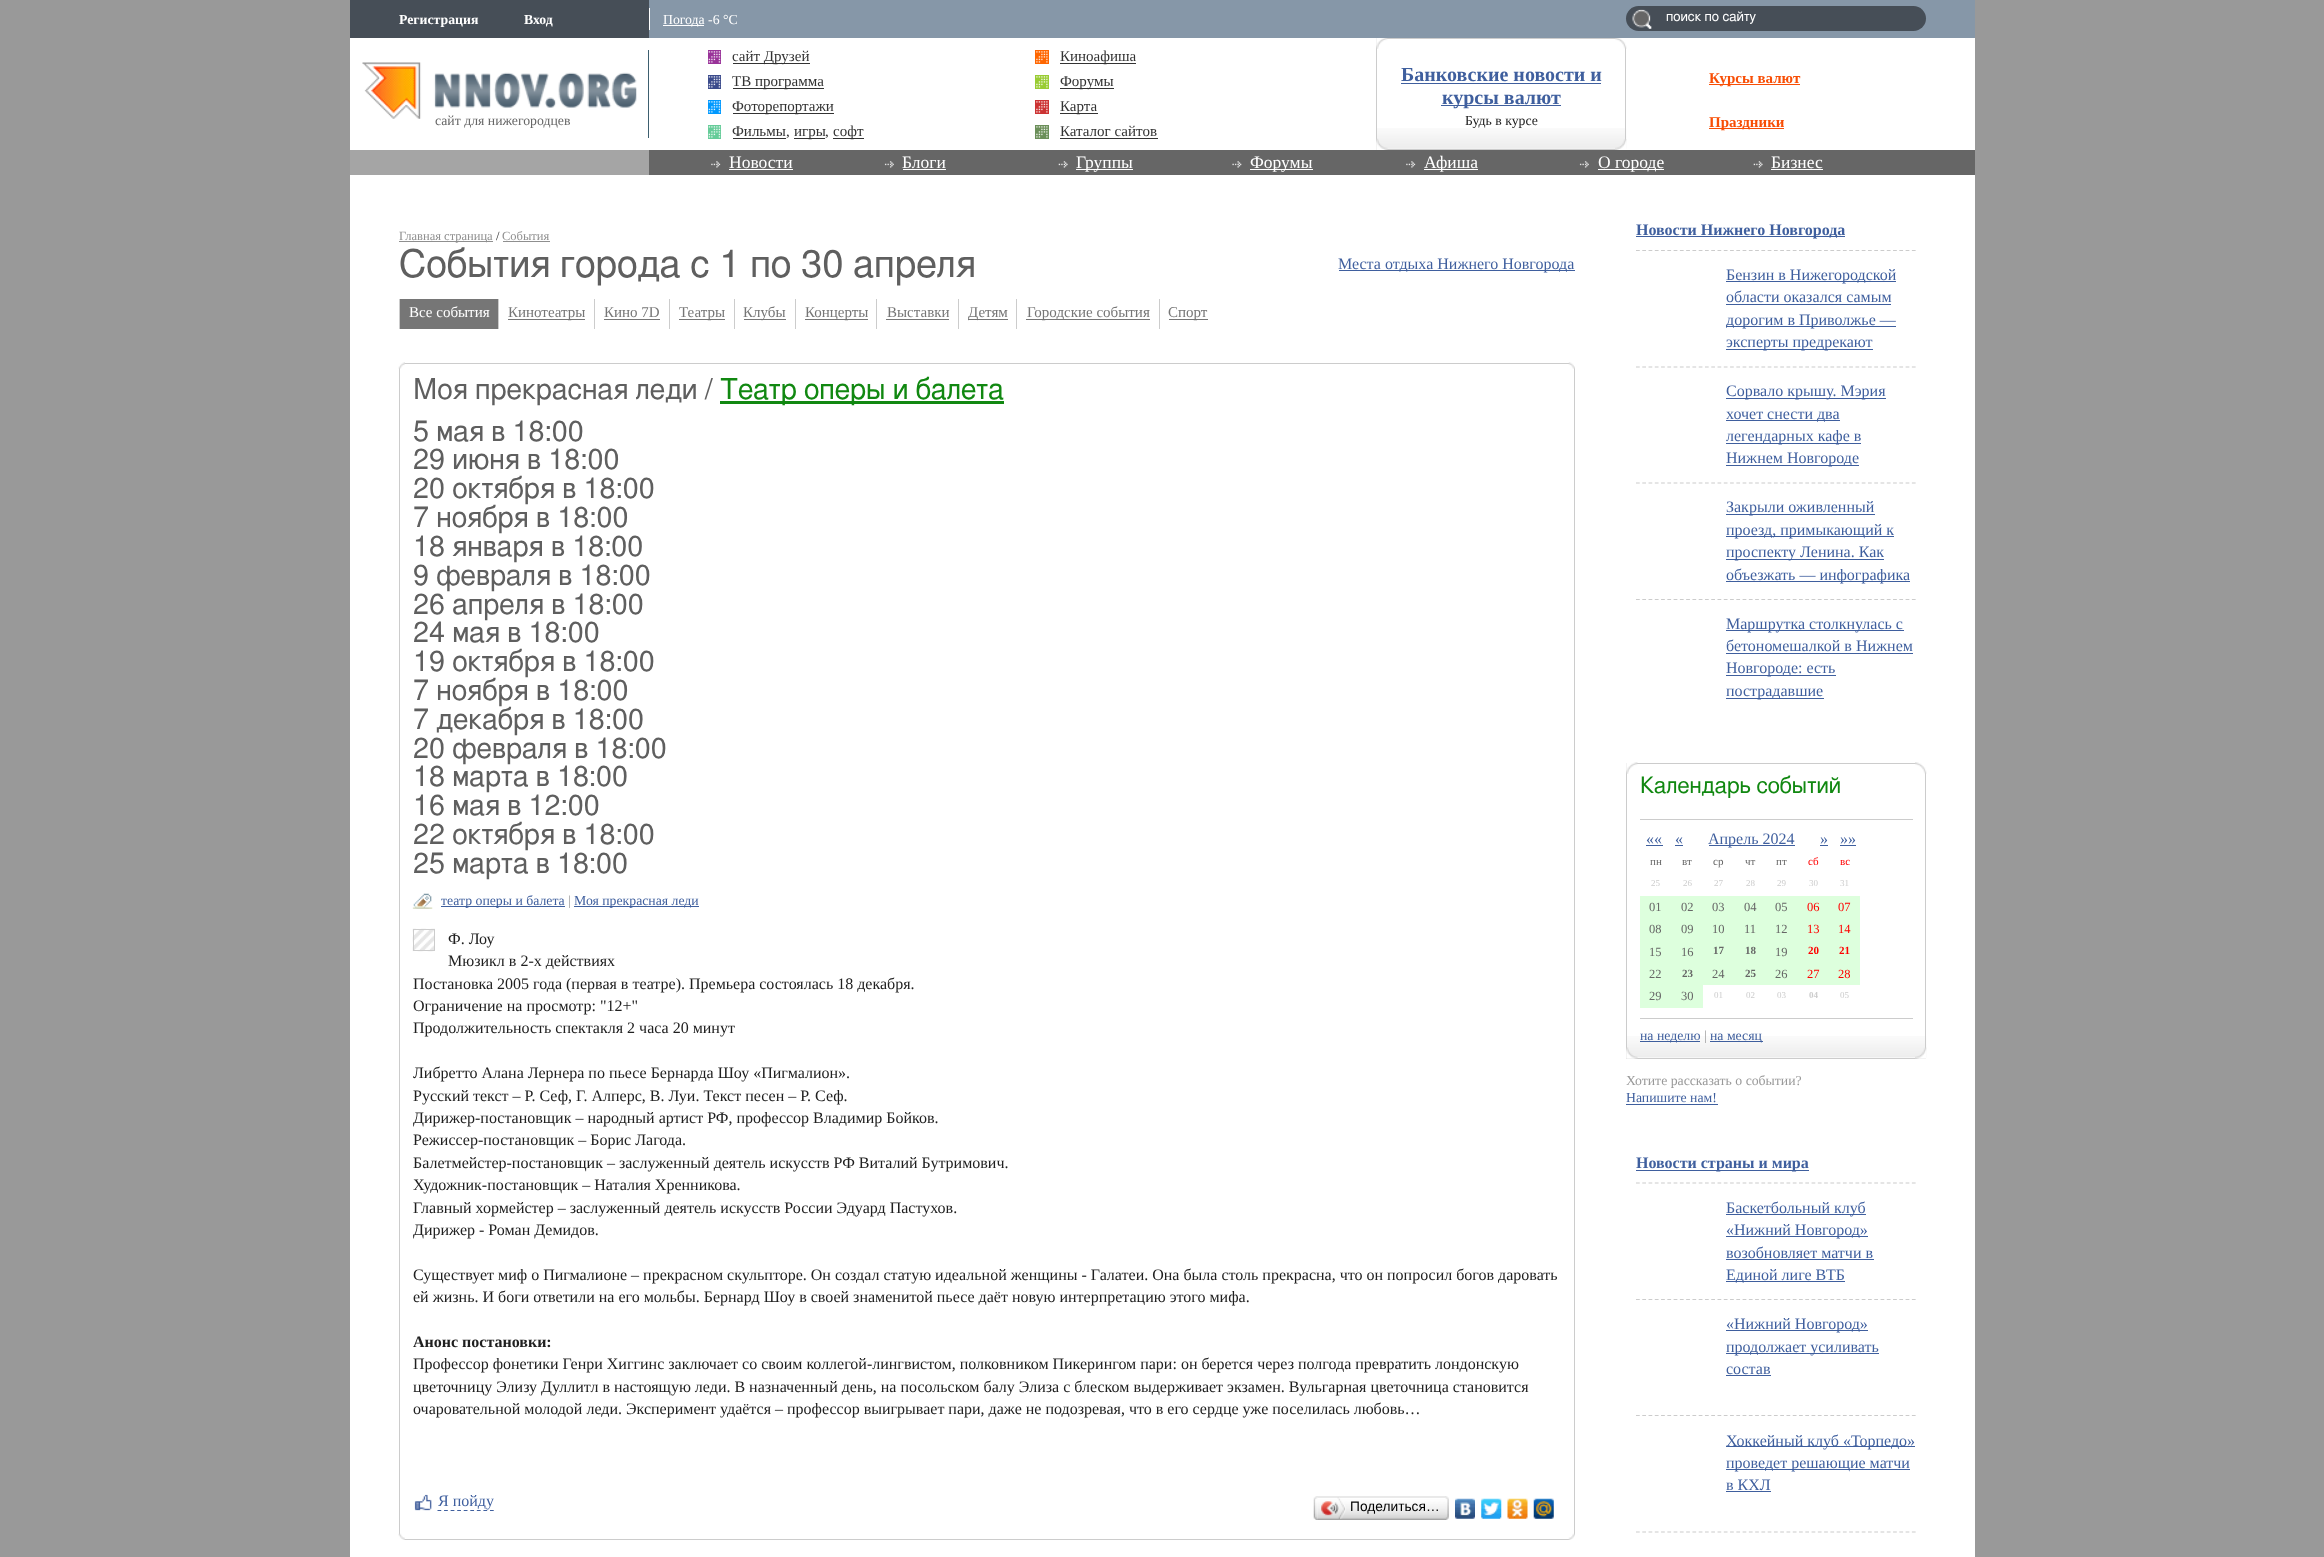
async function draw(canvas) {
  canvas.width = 2324
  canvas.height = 1557
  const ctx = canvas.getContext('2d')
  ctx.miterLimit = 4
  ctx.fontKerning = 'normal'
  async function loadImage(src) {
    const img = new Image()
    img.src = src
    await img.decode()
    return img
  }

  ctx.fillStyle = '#999'
  ctx.fillRect(0, 0, 2324, 1557)
  ctx.fillStyle = '#fff'
  ctx.fillRect(350, 38, 1625, 1519)
  ctx.fillStyle = '#8697a8'
  ctx.fillRect(649, 0, 1326, 38)
  ctx.fillStyle = '#464e57'
  ctx.fillRect(350, 0, 299, 38)
  ctx.font = 'bold 13.75px Liberation Serif'
  ctx.fillStyle = '#fff'
  ctx.fillText('Регистрация', 399, 24)
  ctx.fillText('Вход', 524, 24)
  ctx.fillRect(649, 8, 1, 22)
  ctx.fillRect(663, 25, 41, 1)
  ctx.font = '13.75px Liberation Serif'
  ctx.fillText('Погода -6 °C', 663, 24)
  ctx.fillStyle = '#464e57'
  ctx.beginPath()
  ctx.roundRect(1626, 6, 300, 25, 12.5)
  ctx.fill()
  ctx.drawImage(await loadImage('image0.png'), 1632, 9, 20, 20)
  ctx.font = '13.5px FreeSans'
  ctx.fillStyle = '#fff'
  ctx.fillText('поиск по сайту', 1666, 21)
  ctx.drawImage(await loadImage('image1.png'), 362, 62, 275, 57)
  ctx.fillStyle = '#3d5e6f'
  ctx.fillRect(648, 50, 1, 88)
  ctx.font = '13.75px Liberation Serif'
  ctx.fillStyle = '#666'
  ctx.fillText('сайт для нижегородцев', 435, 125)
  ctx.fillStyle = '#939'
  ctx.fillRect(708, 50, 13, 14)
  ctx.drawImage(await loadImage('image2.png'), 708, 51, 13, 12)
  ctx.fillStyle = '#333'
  ctx.fillRect(733, 63, 77, 1)
  ctx.font = '15px Liberation Serif'
  ctx.fillText('сайт Друзей', 732, 61)
  ctx.fillStyle = '#f60'
  ctx.fillRect(1035, 50, 14, 14)
  ctx.drawImage(await loadImage('image3.png'), 1036, 51, 12, 12)
  ctx.fillStyle = '#333'
  ctx.fillRect(1060, 63, 76, 1)
  ctx.fillText('Киноафиша', 1060, 61)
  ctx.fillStyle = '#3b4b8c'
  ctx.fillRect(708, 75, 13, 14)
  ctx.drawImage(await loadImage('image4.png'), 708, 76, 13, 12)
  ctx.fillStyle = '#333'
  ctx.fillRect(733, 88, 91, 1)
  ctx.fillText('ТВ программа', 732, 86)
  ctx.fillStyle = '#9c3'
  ctx.fillRect(1035, 75, 14, 14)
  ctx.drawImage(await loadImage('image5.png'), 1036, 76, 12, 12)
  ctx.fillStyle = '#333'
  ctx.fillRect(1060, 88, 54, 1)
  ctx.fillText('Форумы', 1060, 86)
  ctx.fillStyle = '#09f'
  ctx.fillRect(708, 100, 13, 14)
  ctx.drawImage(await loadImage('image6.png'), 708, 101, 13, 12)
  ctx.fillStyle = '#333'
  ctx.fillRect(733, 113, 101, 1)
  ctx.fillText('Фоторепортажи', 732, 111)
  ctx.fillStyle = '#c33'
  ctx.fillRect(1035, 100, 14, 14)
  ctx.drawImage(await loadImage('image7.png'), 1036, 101, 12, 12)
  ctx.fillStyle = '#333'
  ctx.fillRect(1060, 113, 38, 1)
  ctx.fillText('Карта', 1060, 111)
  ctx.fillStyle = '#6c9'
  ctx.fillRect(708, 125, 13, 14)
  ctx.drawImage(await loadImage('image8.png'), 708, 126, 13, 12)
  ctx.fillStyle = '#333'
  ctx.fillText('Фильмы', 732, 136)
  ctx.fillRect(733, 138, 53, 1)
  ctx.fillText(',', 786, 136)
  ctx.fillRect(794, 138, 31, 1)
  ctx.fillText('игры', 794, 136)
  ctx.fillText(',', 825, 136)
  ctx.fillRect(833, 138, 31, 1)
  ctx.fillText('софт', 833, 136)
  ctx.fillStyle = '#6b8f59'
  ctx.fillRect(1035, 125, 14, 14)
  ctx.drawImage(await loadImage('image9.png'), 1036, 126, 12, 12)
  ctx.fillStyle = '#333'
  ctx.fillText('Каталог сайтов', 1060, 136)
  ctx.fillRect(1060, 138, 98, 1)
  ctx.drawImage(await loadImage('image10.png'), 1377, 128, 250, 21)
  ctx.strokeStyle = '#ccc'
  ctx.strokeRect(1376.5, 38.5, 249, 111)
  ctx.drawImage(await loadImage('image11.png'), 1376, 38, 12, 11)
  ctx.drawImage(await loadImage('image12.png'), 1615, 38, 12, 11)
  ctx.font = 'bold 20px Liberation Serif'
  ctx.fillStyle = '#3f5f9e'
  ctx.fillText('Банковские новости и', 1401, 81)
  ctx.fillRect(1401, 83, 200, 1)
  ctx.fillRect(1441, 105, 120, 1)
  ctx.fillText('курсы валют', 1442, 104)
  ctx.font = '13.75px Liberation Serif'
  ctx.fillStyle = '#202020'
  ctx.fillText('Будь в курсе', 1465, 125)
  ctx.drawImage(await loadImage('image13.png'), 1376, 138, 12, 12)
  ctx.drawImage(await loadImage('image14.png'), 1615, 139, 12, 11)
  ctx.fillStyle = '#f84e05'
  ctx.fillRect(1709, 84, 91, 1)
  ctx.font = 'bold 15px Liberation Serif'
  ctx.fillText('Курсы валют', 1709, 83)
  ctx.fillRect(1709, 128, 75, 1)
  ctx.fillText('Праздники', 1709, 127)
  ctx.fillStyle = '#666'
  ctx.fillRect(649, 150, 1326, 25)
  ctx.fillStyle = '#a5a5a5'
  ctx.fillRect(350, 150, 299, 25)
  ctx.drawImage(await loadImage('image15.png'), 711, 161, 10, 7)
  ctx.font = '17.5px Liberation Serif'
  ctx.fillStyle = '#fff'
  ctx.fillText('Новости', 729, 168)
  ctx.fillRect(729, 169, 64, 1)
  ctx.drawImage(await loadImage('image16.png'), 884, 161, 10, 7)
  ctx.fillText('Блоги', 902, 168)
  ctx.fillRect(903, 169, 43, 1)
  ctx.drawImage(await loadImage('image17.png'), 1058, 161, 10, 7)
  ctx.fillRect(1076, 169, 57, 1)
  ctx.fillText('Группы', 1076, 168)
  ctx.drawImage(await loadImage('image18.png'), 1232, 161, 10, 7)
  ctx.fillRect(1250, 169, 63, 1)
  ctx.fillText('Форумы', 1250, 168)
  ctx.drawImage(await loadImage('image19.png'), 1406, 161, 10, 7)
  ctx.fillRect(1424, 169, 54, 1)
  ctx.fillText('Афиша', 1424, 168)
  ctx.drawImage(await loadImage('image20.png'), 1579, 161, 10, 7)
  ctx.fillRect(1598, 169, 66, 1)
  ctx.fillText('О городе', 1598, 168)
  ctx.drawImage(await loadImage('image21.png'), 1753, 161, 10, 7)
  ctx.fillText('Бизнес', 1771, 168)
  ctx.fillRect(1771, 169, 52, 1)
  ctx.fillStyle = '#8f8f8f'
  ctx.fillRect(399, 241, 94, 1)
  ctx.font = '12.5px Liberation Serif'
  ctx.fillText('Главная страница', 399, 240)
  ctx.fillStyle = '#202020'
  ctx.fillText('/', 496, 240)
  ctx.fillStyle = '#8f8f8f'
  ctx.fillText('События', 502, 240)
  ctx.fillRect(503, 241, 47, 1)
  ctx.font = '38.4px FreeSans'
  ctx.fillStyle = '#5f5f5f'
  ctx.fillText('События города с 1 по 30 апреля', 399, 277)
  ctx.fillStyle = '#3f5f9e'
  ctx.fillRect(1339, 270, 236, 1)
  ctx.font = '16px Liberation Serif'
  ctx.fillText('Места отдыха Нижнего Новгорода', 1338, 269)
  ctx.fillStyle = '#767676'
  ctx.fillRect(400, 299, 98, 30)
  ctx.fillStyle = '#ccc'
  ctx.fillRect(399, 299, 1, 30)
  ctx.font = '15px Liberation Serif'
  ctx.fillStyle = '#fff'
  ctx.fillText('Все события', 409, 317)
  ctx.fillStyle = '#ccc'
  ctx.fillRect(498, 299, 1, 30)
  ctx.fillStyle = '#767676'
  ctx.fillRect(508, 319, 77, 1)
  ctx.fillText('Кинотеатры', 508, 317)
  ctx.fillStyle = '#ccc'
  ctx.fillRect(594, 299, 1, 30)
  ctx.fillStyle = '#767676'
  ctx.fillText('Кино 7D', 604, 317)
  ctx.fillRect(604, 319, 56, 1)
  ctx.fillStyle = '#ccc'
  ctx.fillRect(669, 299, 1, 30)
  ctx.fillStyle = '#767676'
  ctx.fillRect(679, 319, 46, 1)
  ctx.fillText('Театры', 679, 317)
  ctx.fillStyle = '#ccc'
  ctx.fillRect(734, 299, 1, 30)
  ctx.fillStyle = '#767676'
  ctx.fillRect(744, 319, 42, 1)
  ctx.fillText('Клубы', 743, 317)
  ctx.fillStyle = '#ccc'
  ctx.fillRect(795, 299, 1, 30)
  ctx.fillStyle = '#767676'
  ctx.fillRect(805, 319, 63, 1)
  ctx.fillText('Концерты', 805, 317)
  ctx.fillStyle = '#ccc'
  ctx.fillRect(876, 299, 1, 30)
  ctx.fillStyle = '#767676'
  ctx.fillText('Выставки', 887, 317)
  ctx.fillRect(886, 319, 63, 1)
  ctx.fillStyle = '#ccc'
  ctx.fillRect(958, 299, 1, 30)
  ctx.fillStyle = '#767676'
  ctx.fillRect(968, 319, 40, 1)
  ctx.fillText('Детям', 968, 317)
  ctx.fillStyle = '#ccc'
  ctx.fillRect(1016, 299, 1, 30)
  ctx.fillStyle = '#767676'
  ctx.fillRect(1026, 319, 124, 1)
  ctx.fillText('Городские события', 1027, 317)
  ctx.fillStyle = '#ccc'
  ctx.fillRect(1159, 299, 1, 30)
  ctx.fillStyle = '#767676'
  ctx.fillRect(1169, 319, 39, 1)
  ctx.fillText('Спорт', 1168, 317)
  ctx.strokeRect(399.5, 363.5, 1175, 1176)
  ctx.drawImage(await loadImage('image22.png'), 398, 362, 7, 7)
  ctx.drawImage(await loadImage('image23.png'), 1568, 362, 7, 7)
  ctx.font = '28.75px FreeSans'
  ctx.fillStyle = '#5f5f5f'
  ctx.fillText('Моя прекрасная леди /', 413, 399)
  ctx.fillStyle = '#181'
  ctx.fillRect(720, 401, 284, 3)
  ctx.fillText('Театр оперы и балета', 720, 399)
  ctx.fillStyle = '#5f5f5f'
  ctx.fillText('5 мая в 18:00', 413, 441)
  ctx.fillText('29 июня в 18:00', 413, 469)
  ctx.fillText('20 октября в 18:00', 413, 498)
  ctx.fillText('7 ноября в 18:00', 413, 527)
  ctx.fillText('18 января в 18:00', 413, 556)
  ctx.fillText('9 февраля в 18:00', 413, 585)
  ctx.fillText('26 апреля в 18:00', 413, 614)
  ctx.fillText('24 мая в 18:00', 413, 642)
  ctx.fillText('19 октября в 18:00', 413, 671)
  ctx.fillText('7 ноября в 18:00', 413, 700)
  ctx.fillText('7 декабря в 18:00', 413, 729)
  ctx.fillText('20 февраля в 18:00', 413, 758)
  ctx.fillText('18 марта в 18:00', 413, 786)
  ctx.fillText('16 мая в 12:00', 413, 815)
  ctx.fillText('22 октября в 18:00', 413, 844)
  ctx.fillText('25 марта в 18:00', 413, 873)
  ctx.drawImage(await loadImage('image24.png'), 412, 893, 21, 16)
  ctx.fillStyle = '#3f5f9e'
  ctx.fillRect(441, 906, 124, 1)
  ctx.font = '13.75px Liberation Serif'
  ctx.fillText('театр оперы и балета', 441, 905)
  ctx.fillStyle = '#999'
  ctx.fillText('|', 568, 905)
  ctx.fillStyle = '#3f5f9e'
  ctx.fillRect(574, 906, 125, 1)
  ctx.fillText('Моя прекрасная леди', 574, 905)
  ctx.drawImage(await loadImage('image25.png'), 412, 928, 23, 24)
  ctx.strokeRect(413.5, 929.5, 21, 21)
  ctx.font = '16px Liberation Serif'
  ctx.fillStyle = '#202020'
  ctx.fillText('Ф. Лоу', 448, 944)
  ctx.fillText('Мюзикл в 2-х действиях', 448, 966)
  ctx.fillText('Постановка 2005 года (первая в театре). Премьера состоялась 18 декабря.', 413, 989)
  ctx.fillText('Ограничение на просмотр: "12+"', 413, 1011)
  ctx.fillText('Продолжительность спектакля 2 часа 20 минут', 413, 1033)
  ctx.fillText('Либретто Алана Лернера по пьесе Бернарда Шоу «Пигмалион».', 413, 1078)
  ctx.fillText('Русский текст – Р. Сеф, Г. Алперс, В. Луи. Текст песен – Р. Сеф.', 413, 1101)
  ctx.save()
  ctx.beginPath()
  ctx.rect(413, 376, 1148, 1090)
  ctx.clip()
  ctx.fillText('Дирижер-постановщик – народный артист РФ, профессор Владимир Бойков.', 413, 1123)
  ctx.restore()
  ctx.fillText('Режиссер-постановщик – Борис Лагода.', 413, 1145)
  ctx.fillText('Балетмейстер-постановщик – заслуженный деятель искусств РФ Виталий Бутримович.', 413, 1168)
  ctx.fillText('Художник-постановщик – Наталия Хренникова.', 413, 1190)
  ctx.fillText('Главный хормейстер – заслуженный деятель искусств России Эдуард Пастухов.', 413, 1213)
  ctx.save()
  ctx.beginPath()
  ctx.rect(413, 376, 1148, 1090)
  ctx.clip()
  ctx.fillText('Дирижер - Роман Демидов.', 413, 1235)
  ctx.restore()
  ctx.fillText('Существует миф о Пигмалионе – прекрасном скульпторе. Он создал статую идеальной женщины - Галатеи. Она была столь прекрасна, что он попросил богов даровать', 413, 1280)
  ctx.fillText('ей жизнь. И боги ответили на его мольбы. Бернард Шоу в своей знаменитой пьесе даёт новую интерпретацию этого мифа.', 413, 1302)
  ctx.font = 'bold 16px Liberation Serif'
  ctx.fillText('Анонс постановки:', 413, 1347)
  ctx.font = '16px Liberation Serif'
  ctx.fillText('Профессор фонетики Генри Хиггинс заключает со своим коллегой-лингвистом, полковником Пикерингом пари: он берется через полгода превратить лондонскую', 413, 1369)
  ctx.fillText('цветочницу Элизу Дуллитл в настоящую леди. В назначенный день, на посольском балу Элиза с блеском выдерживает экзамен. Вульгарная цветочница становится', 413, 1392)
  ctx.fillText('очаровательной молодой леди. Эксперимент удаётся – профессор выигрывает пари, даже не подозревая, что в его сердце уже поселилась любовь…', 413, 1414)
  ctx.drawImage(await loadImage('image26.png'), 414, 1494, 18, 17)
  ctx.beginPath()
  ctx.moveTo(437.5, 1510.5)
  ctx.lineTo(494, 1510.5)
  ctx.strokeStyle = '#3f5f9e'
  ctx.lineWidth = 1.2
  ctx.setLineDash([3.75, 2.81])
  ctx.stroke()
  ctx.fillStyle = '#3f5f9e'
  ctx.fillText('Я пойду', 438, 1506)
  ctx.drawImage(await loadImage('image27.png'), 1317, 1496, 128, 24)
  ctx.drawImage(await loadImage('image28.png'), 1313, 1496, 5, 24)
  ctx.drawImage(await loadImage('image29.png'), 1321, 1497, 25, 22)
  ctx.font = '13.75px Liberation Sans'
  ctx.fillStyle = '#000'
  ctx.fillText('Поделиться…', 1350, 1511)
  ctx.drawImage(await loadImage('image30.png'), 1445, 1496, 4, 24)
  ctx.drawImage(await loadImage('image31.png'), 1455, 1498, 20, 21)
  ctx.drawImage(await loadImage('image32.png'), 1481, 1498, 21, 21)
  ctx.drawImage(await loadImage('image33.png'), 1507, 1498, 21, 21)
  ctx.drawImage(await loadImage('image34.png'), 1533, 1498, 21, 21)
  ctx.drawImage(await loadImage('image35.png'), 398, 1533, 7, 7)
  ctx.drawImage(await loadImage('image36.png'), 1568, 1533, 7, 7)
  ctx.fillStyle = '#3f5f9e'
  ctx.fillRect(1636, 236, 209, 1)
  ctx.font = 'bold 16px Liberation Serif'
  ctx.fillText('Новости Нижнего Новгорода', 1636, 235)
  ctx.beginPath()
  ctx.moveTo(1636, 250.5)
  ctx.lineTo(1916, 250.5)
  ctx.strokeStyle = '#ccc'
  ctx.setLineDash([3.75, 2.52])
  ctx.stroke()
  ctx.fillRect(1726, 281, 170, 1)
  ctx.font = '16px Liberation Serif'
  ctx.fillText('Бензин в Нижегородской', 1726, 280)
  ctx.fillText('области оказался самым', 1726, 302)
  ctx.fillRect(1726, 304, 165, 1)
  ctx.fillRect(1726, 326, 170, 1)
  ctx.fillText('дорогим в Приволжье —', 1726, 325)
  ctx.fillRect(1726, 349, 147, 1)
  ctx.fillText('эксперты предрекают', 1726, 347)
  ctx.beginPath()
  ctx.moveTo(1636, 367)
  ctx.lineTo(1916, 367)
  ctx.stroke()
  ctx.fillRect(1726, 398, 160, 1)
  ctx.fillText('Сорвало крышу. Мэрия', 1726, 396)
  ctx.fillRect(1726, 420, 114, 1)
  ctx.fillText('хочет снести два', 1726, 419)
  ctx.fillRect(1726, 443, 135, 1)
  ctx.fillText('легендарных кафе в', 1726, 441)
  ctx.fillRect(1726, 465, 133, 1)
  ctx.fillText('Нижнем Новгороде', 1726, 463)
  ctx.beginPath()
  ctx.moveTo(1636, 483)
  ctx.lineTo(1916, 483)
  ctx.stroke()
  ctx.fillRect(1726, 514, 149, 1)
  ctx.fillText('Закрыли оживленный', 1726, 512)
  ctx.fillRect(1726, 536, 168, 1)
  ctx.fillText('проезд, примыкающий к', 1726, 535)
  ctx.fillRect(1726, 559, 158, 1)
  ctx.fillText('проспекту Ленина. Как', 1726, 557)
  ctx.fillRect(1726, 581, 184, 1)
  ctx.fillText('объезжать — инфографика', 1726, 580)
  ctx.beginPath()
  ctx.moveTo(1636, 599.5)
  ctx.lineTo(1916, 599.5)
  ctx.stroke()
  ctx.fillRect(1726, 630, 178, 1)
  ctx.fillText('Маршрутка столкнулась с', 1726, 629)
  ctx.fillText('бетономешалкой в Нижнем', 1726, 651)
  ctx.fillRect(1726, 653, 187, 1)
  ctx.fillRect(1726, 675, 110, 1)
  ctx.fillText('Новгороде: есть', 1726, 673)
  ctx.fillRect(1726, 698, 98, 1)
  ctx.fillText('пострадавшие', 1726, 696)
  ctx.drawImage(await loadImage('image37.png'), 1627, 1036, 300, 22)
  ctx.lineWidth = 1
  ctx.setLineDash([])
  ctx.strokeRect(1626.5, 763.5, 299, 295)
  ctx.drawImage(await loadImage('image38.png'), 1626, 762, 12, 12)
  ctx.drawImage(await loadImage('image39.png'), 1915, 762, 12, 12)
  ctx.font = '22.5px FreeSans'
  ctx.fillStyle = '#181'
  ctx.fillText('Календарь событий', 1640, 793)
  ctx.fillStyle = '#ccc'
  ctx.fillRect(1640, 819, 273, 1)
  ctx.font = '16px Liberation Serif'
  ctx.fillStyle = '#3f5f9e'
  ctx.fillText('««', 1646, 844)
  ctx.fillRect(1646, 845, 17, 1)
  ctx.fillText('«', 1675, 844)
  ctx.fillRect(1675, 845, 8, 1)
  ctx.fillRect(1709, 845, 86, 1)
  ctx.fillText('Апрель 2024', 1708, 844)
  ctx.fillText('»', 1820, 844)
  ctx.fillRect(1820, 845, 8, 1)
  ctx.fillText('»»', 1840, 844)
  ctx.fillRect(1840, 845, 16, 1)
  ctx.font = '11px Liberation Serif'
  ctx.fillStyle = '#666'
  ctx.fillText('пн', 1650, 865)
  ctx.fillText('вт', 1682, 865)
  ctx.fillText('ср', 1713, 865)
  ctx.fillText('чт', 1745, 865)
  ctx.fillText('пт', 1776, 865)
  ctx.fillStyle = '#f00'
  ctx.fillText('сб', 1808, 865)
  ctx.fillText('вс', 1840, 865)
  ctx.font = '9px Liberation Serif'
  ctx.fillStyle = '#ccc'
  ctx.fillText('25', 1651, 886)
  ctx.fillText('26', 1683, 886)
  ctx.fillText('27', 1714, 886)
  ctx.fillText('28', 1746, 886)
  ctx.fillText('29', 1777, 886)
  ctx.fillText('30', 1809, 886)
  ctx.fillText('31', 1840, 886)
  ctx.fillStyle = '#dfd'
  ctx.fillRect(1640, 896, 220, 23)
  ctx.font = '12.5px Liberation Serif'
  ctx.fillStyle = '#666'
  ctx.fillText('01', 1649, 911)
  ctx.fillText('02', 1681, 911)
  ctx.fillText('03', 1712, 911)
  ctx.fillText('04', 1744, 911)
  ctx.fillText('05', 1775, 911)
  ctx.fillStyle = '#f00'
  ctx.fillText('06', 1807, 911)
  ctx.fillText('07', 1838, 911)
  ctx.fillStyle = '#dfd'
  ctx.fillRect(1640, 919, 220, 22)
  ctx.fillStyle = '#666'
  ctx.fillText('08', 1649, 933)
  ctx.fillText('09', 1681, 933)
  ctx.fillText('10', 1712, 933)
  ctx.fillText('11', 1744, 933)
  ctx.fillText('12', 1775, 933)
  ctx.fillStyle = '#f00'
  ctx.fillText('13', 1807, 933)
  ctx.fillText('14', 1838, 933)
  ctx.fillStyle = '#dfd'
  ctx.fillRect(1640, 941, 220, 22)
  ctx.fillStyle = '#666'
  ctx.fillText('15', 1649, 956)
  ctx.fillText('16', 1681, 956)
  ctx.font = 'bold 11px Liberation Serif'
  ctx.fillText('17', 1713, 954)
  ctx.fillText('18', 1745, 954)
  ctx.font = '12.5px Liberation Serif'
  ctx.fillText('19', 1775, 956)
  ctx.font = 'bold 11px Liberation Serif'
  ctx.fillStyle = '#f00'
  ctx.fillText('20', 1808, 954)
  ctx.fillText('21', 1839, 954)
  ctx.fillStyle = '#dfd'
  ctx.fillRect(1640, 963, 220, 22)
  ctx.font = '12.5px Liberation Serif'
  ctx.fillStyle = '#666'
  ctx.fillText('22', 1649, 978)
  ctx.font = 'bold 11px Liberation Serif'
  ctx.fillText('23', 1682, 977)
  ctx.font = '12.5px Liberation Serif'
  ctx.fillText('24', 1712, 978)
  ctx.font = 'bold 11px Liberation Serif'
  ctx.fillText('25', 1745, 977)
  ctx.font = '12.5px Liberation Serif'
  ctx.fillText('26', 1775, 978)
  ctx.fillStyle = '#f00'
  ctx.fillText('27', 1807, 978)
  ctx.fillText('28', 1838, 978)
  ctx.fillStyle = '#dfd'
  ctx.fillRect(1640, 985, 63, 23)
  ctx.fillStyle = '#666'
  ctx.fillText('29', 1649, 1000)
  ctx.fillText('30', 1681, 1000)
  ctx.font = '9px Liberation Serif'
  ctx.fillStyle = '#ccc'
  ctx.fillText('01', 1714, 998)
  ctx.fillText('02', 1746, 998)
  ctx.fillText('03', 1777, 998)
  ctx.font = 'bold 9px Liberation Serif'
  ctx.fillText('04', 1809, 998)
  ctx.font = '9px Liberation Serif'
  ctx.fillText('05', 1840, 998)
  ctx.fillRect(1640, 1018, 273, 1)
  ctx.fillStyle = '#3f5f9e'
  ctx.fillRect(1640, 1041, 60, 1)
  ctx.font = '13.75px Liberation Serif'
  ctx.fillText('на неделю', 1640, 1040)
  ctx.fillStyle = '#999'
  ctx.fillText('|', 1704, 1040)
  ctx.fillStyle = '#3f5f9e'
  ctx.fillRect(1710, 1041, 53, 1)
  ctx.fillText('на месяц', 1710, 1040)
  ctx.drawImage(await loadImage('image40.png'), 1626, 1047, 12, 12)
  ctx.drawImage(await loadImage('image41.png'), 1915, 1047, 12, 12)
  ctx.fillStyle = '#999'
  ctx.fillText('Хотите рассказать о событии?', 1626, 1085)
  ctx.fillStyle = '#3f5f9e'
  ctx.fillText('Напишите нам!', 1626, 1102)
  ctx.fillRect(1626, 1104, 92, 1)
  ctx.fillRect(1636, 1170, 173, 1)
  ctx.font = 'bold 16px Liberation Serif'
  ctx.fillText('Новости страны и мира', 1636, 1168)
  ctx.beginPath()
  ctx.moveTo(1636, 1183)
  ctx.lineTo(1916, 1183)
  ctx.lineWidth = 1.2
  ctx.setLineDash([3.75, 2.52])
  ctx.stroke()
  ctx.fillRect(1726, 1214, 140, 1)
  ctx.font = '16px Liberation Serif'
  ctx.fillText('Баскетбольный клуб', 1726, 1213)
  ctx.fillRect(1726, 1236, 142, 1)
  ctx.fillText('«Нижний Новгород»', 1726, 1235)
  ctx.fillText('возобновляет матчи в', 1726, 1258)
  ctx.fillRect(1726, 1259, 148, 1)
  ctx.fillRect(1726, 1281, 119, 1)
  ctx.fillText('Единой лиге ВТБ', 1726, 1280)
  ctx.beginPath()
  ctx.moveTo(1636, 1299.5)
  ctx.lineTo(1916, 1299.5)
  ctx.stroke()
  ctx.fillRect(1726, 1330, 142, 1)
  ctx.fillText('«Нижний Новгород»', 1726, 1329)
  ctx.fillRect(1726, 1353, 153, 1)
  ctx.fillText('продолжает усиливать', 1726, 1352)
  ctx.fillText('состав', 1726, 1374)
  ctx.fillRect(1726, 1375, 45, 1)
  ctx.beginPath()
  ctx.moveTo(1636, 1415.5)
  ctx.lineTo(1916, 1415.5)
  ctx.stroke()
  ctx.fillRect(1726, 1446, 189, 1)
  ctx.fillText('Хоккейный клуб «Торпедо»', 1726, 1446)
  ctx.fillRect(1726, 1469, 184, 1)
  ctx.fillText('проведет решающие матчи', 1726, 1468)
  ctx.fillText('в КХЛ', 1726, 1490)
  ctx.fillRect(1726, 1491, 45, 1)
  ctx.beginPath()
  ctx.moveTo(1636, 1532)
  ctx.lineTo(1916, 1532)
  ctx.stroke()
}

draw(document.querySelector('canvas'))
